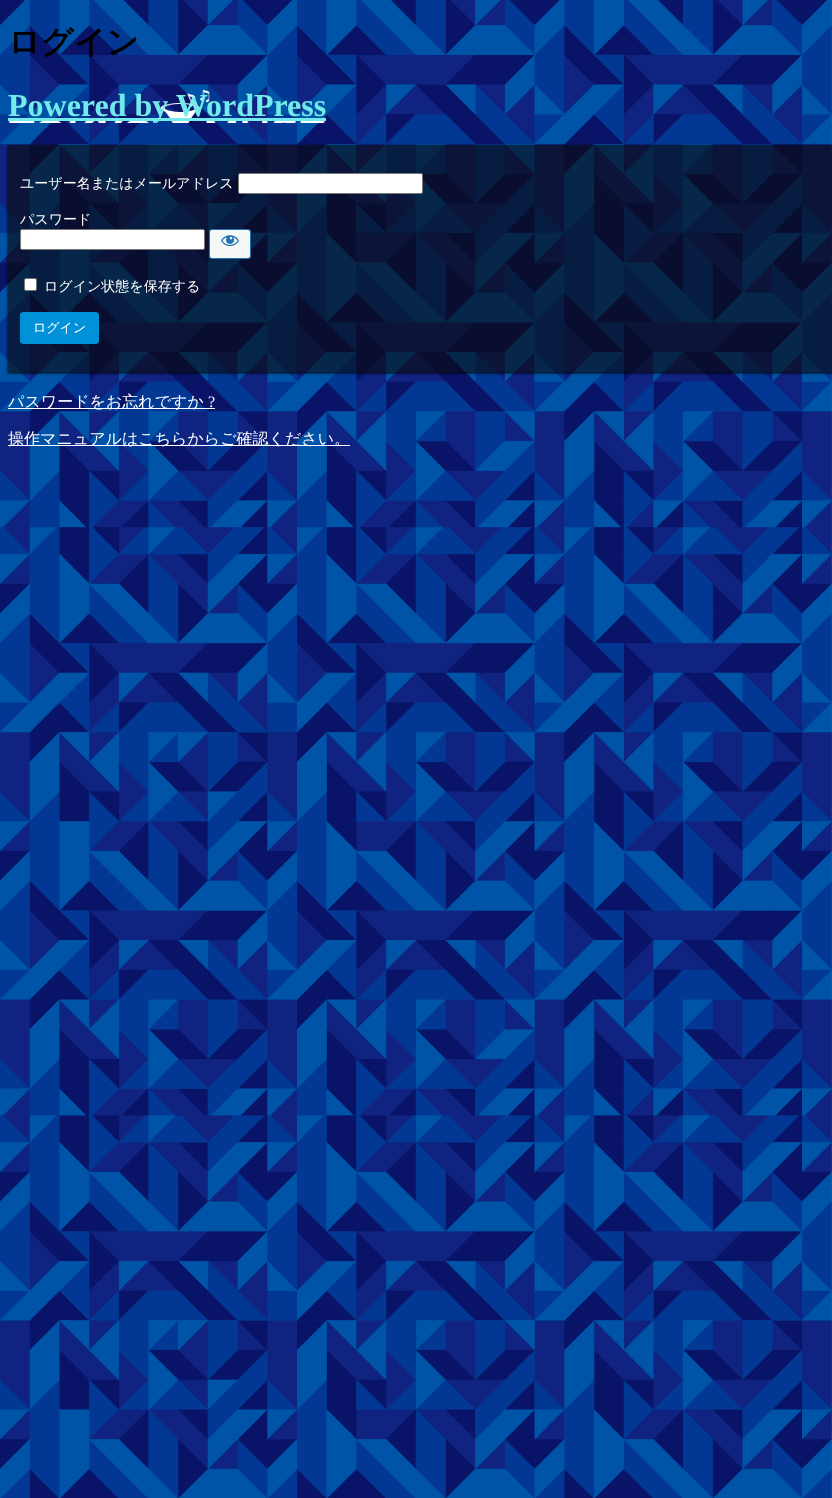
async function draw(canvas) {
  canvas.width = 832
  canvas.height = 1498
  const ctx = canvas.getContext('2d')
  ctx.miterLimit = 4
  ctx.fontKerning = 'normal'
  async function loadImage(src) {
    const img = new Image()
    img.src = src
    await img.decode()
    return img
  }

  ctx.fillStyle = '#fff'
  ctx.fillRect(0, 0, 832, 1498)
  ctx.drawImage(await loadImage('image0.png'), 0, 0, 832, 1498)
  ctx.font = 'bold 32px WenQuanYi Zen Hei'
  ctx.fillStyle = '#000'
  ctx.fillText('ログイン', 8, 53)
  ctx.drawImage(await loadImage('image1.png'), 8, 89, 317, 34)
  ctx.fillStyle = '#73ebea'
  ctx.fillRect(8, 118, 318, 3)
  ctx.font = 'bold 32px Liberation Serif'
  ctx.fillText('Powered by WordPress', 8, 116)
  ctx.save()
  ctx.beginPath()
  ctx.moveTo(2, 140)
  ctx.lineTo(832, 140)
  ctx.lineTo(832, 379)
  ctx.lineTo(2, 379)
  ctx.closePath()
  ctx.moveTo(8, 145)
  ctx.lineTo(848, 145)
  ctx.lineTo(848, 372)
  ctx.lineTo(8, 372)
  ctx.closePath()
  ctx.clip('evenodd')
  ctx.fillStyle = '#000'
  ctx.filter = 'blur(1.5px)'
  ctx.beginPath()
  ctx.rect(8, 146, 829, 227)
  ctx.fill()
  ctx.filter = 'none'
  ctx.restore()
  ctx.fillStyle = '#0a0a0a99'
  ctx.fillRect(8, 145, 824, 227)
  ctx.font = '500 14px WenQuanYi Zen Hei'
  ctx.fillStyle = '#fff'
  ctx.fillText('ユーザー名またはメールアドレス', 20, 188)
  ctx.beginPath()
  ctx.roundRect(238.5, 173.5, 184, 20, 1.5)
  ctx.fill()
  ctx.strokeStyle = '#767676'
  ctx.stroke()
  ctx.fillText('パスワード', 20, 224)
  ctx.beginPath()
  ctx.roundRect(20.5, 229.5, 184, 20, 1.5)
  ctx.fill()
  ctx.stroke()
  ctx.fillStyle = '#f6f7f7'
  ctx.beginPath()
  ctx.roundRect(209.5, 229.5, 41, 29, 2.5)
  ctx.fill()
  ctx.strokeStyle = '#2271b1'
  ctx.stroke()
  ctx.drawImage(await loadImage('image2.png'), 221, 235, 18, 12)
  ctx.fillStyle = '#fff'
  ctx.beginPath()
  ctx.roundRect(24.5, 278.5, 12, 12, 1.5)
  ctx.fill()
  ctx.strokeStyle = '#767676'
  ctx.stroke()
  ctx.fillText('ログイン状態を保存する', 44, 291)
  ctx.fillStyle = '#0091d8'
  ctx.beginPath()
  ctx.roundRect(20.5, 312.5, 78, 31, 2.5)
  ctx.fill()
  ctx.strokeStyle = '#0091d8'
  ctx.stroke()
  ctx.font = '500 13px WenQuanYi Zen Hei'
  ctx.fillStyle = '#fff'
  ctx.fillText('ログイン', 33, 332)
  ctx.fillRect(8, 408, 207, 1)
  ctx.font = '500 16px WenQuanYi Zen Hei'
  ctx.fillText('パスワードをお忘れですか', 8, 407)
  ctx.font = '16px Liberation Serif'
  ctx.fillText('?', 208, 407)
  ctx.fillRect(8, 445, 342, 1)
  ctx.font = '500 16px WenQuanYi Zen Hei'
  ctx.fillText('操作マニュアルはこちらからご確認ください。', 8, 444)
}

draw(document.querySelector('canvas'))
